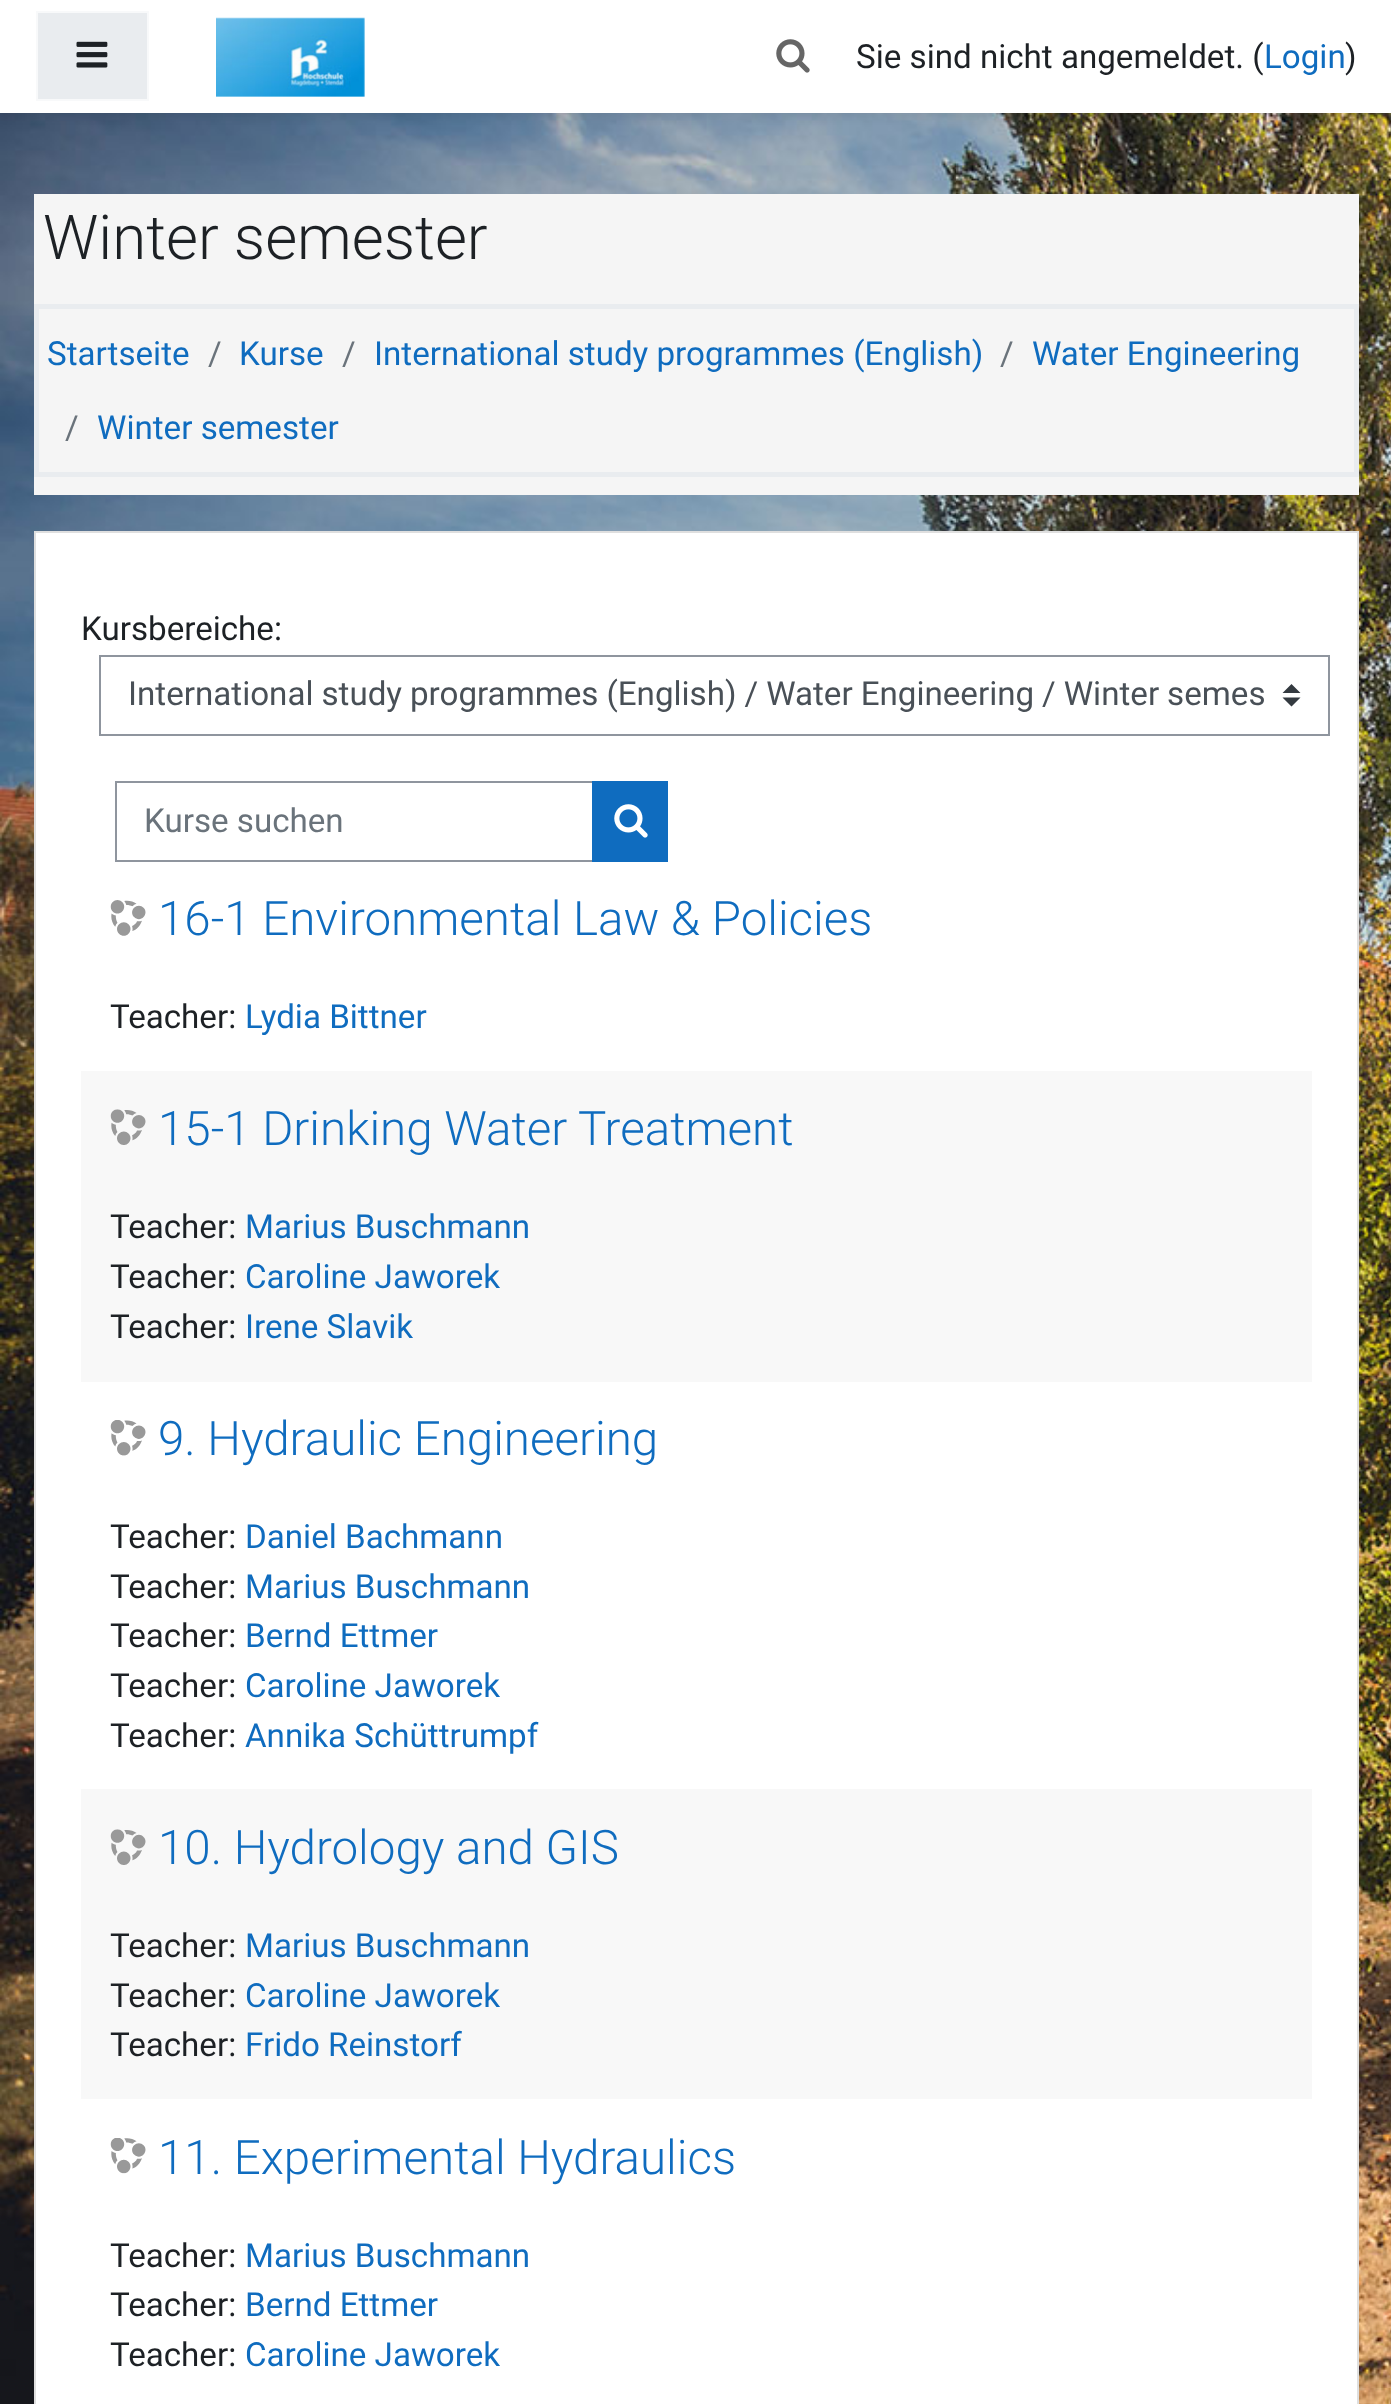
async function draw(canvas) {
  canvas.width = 1391
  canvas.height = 2404
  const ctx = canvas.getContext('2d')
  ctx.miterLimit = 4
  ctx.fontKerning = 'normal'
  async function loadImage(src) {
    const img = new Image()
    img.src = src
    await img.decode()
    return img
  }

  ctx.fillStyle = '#fff'
  ctx.fillRect(0, 0, 1391, 2404)
  ctx.drawImage(await loadImage('image0.png'), 0, 113, 1391, 2291)
  ctx.fillStyle = '#00000014'
  ctx.filter = 'blur(4.5px)'
  ctx.beginPath()
  ctx.rect(0, 5, 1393, 112)
  ctx.fill()
  ctx.filter = 'none'
  ctx.fillStyle = '#fff'
  ctx.fillRect(0, 0, 1391, 113)
  ctx.fillStyle = '#e9ecef'
  ctx.beginPath()
  ctx.rect(37, 12, 111, 88)
  ctx.fill()
  ctx.strokeStyle = '#f8f9fa'
  ctx.lineWidth = 2
  ctx.stroke()
  ctx.drawImage(await loadImage('image1.png'), 76, 41, 32, 27)
  ctx.drawImage(await loadImage('image2.png'), 216, 17, 149, 80)
  ctx.drawImage(await loadImage('image3.png'), 776, 39, 34, 34)
  ctx.font = '33.15px Roboto'
  ctx.fillStyle = '#1d2125'
  ctx.fillText('Sie sind nicht angemeldet. (', 856, 68)
  ctx.fillStyle = '#0f6cbf'
  ctx.fillText('Login', 1264, 68)
  ctx.fillStyle = '#1d2125'
  ctx.fillText(')', 1345, 68)
  ctx.fillStyle = '#f5f5f5'
  ctx.fillRect(34, 194, 1325, 301)
  ctx.font = '300 61.75px Roboto'
  ctx.fillStyle = '#1d2125'
  ctx.fillText('Winter semester', 43, 259)
  ctx.strokeStyle = '#e9ecef'
  ctx.lineWidth = 5
  ctx.strokeRect(36.5, 306.5, 1320, 168)
  ctx.font = '33.15px Roboto'
  ctx.fillStyle = '#0f6cbf'
  ctx.fillText('Startseite', 47, 365)
  ctx.fillStyle = '#6a737b'
  ctx.fillText('/', 208, 365)
  ctx.fillStyle = '#0f6cbf'
  ctx.fillText('Kurse', 239, 365)
  ctx.fillStyle = '#6a737b'
  ctx.fillText('/', 342, 365)
  ctx.fillStyle = '#0f6cbf'
  ctx.fillText('International study programmes (English)', 374, 365)
  ctx.fillStyle = '#6a737b'
  ctx.fillText('/', 1000, 365)
  ctx.fillStyle = '#0f6cbf'
  ctx.fillText('Water Engineering', 1032, 365)
  ctx.fillStyle = '#6a737b'
  ctx.fillText('/', 65, 439)
  ctx.fillStyle = '#0f6cbf'
  ctx.fillText('Winter semester', 97, 439)
  ctx.fillStyle = '#fff'
  ctx.beginPath()
  ctx.rect(35, 532, 1323, 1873)
  ctx.fill()
  ctx.strokeStyle = '#dfdfdf'
  ctx.lineWidth = 2
  ctx.stroke()
  ctx.fillStyle = '#1d2125'
  ctx.fillText('Kursbereiche:', 81, 640)
  ctx.fillStyle = '#343a40'
  ctx.beginPath()
  ctx.moveTo(1291.5, 684)
  ctx.lineTo(1282.5, 693)
  ctx.lineTo(1300.5, 693)
  ctx.closePath()
  ctx.moveTo(1291.5, 706.5)
  ctx.lineTo(1282.5, 697.5)
  ctx.lineTo(1300.5, 697.5)
  ctx.closePath()
  ctx.fill()
  ctx.strokeStyle = '#8f959e'
  ctx.strokeRect(100, 656, 1229, 79)
  ctx.save()
  ctx.beginPath()
  ctx.rect(128, 671, 1137, 49)
  ctx.clip()
  ctx.wordSpacing = '-0.25px'
  ctx.fillStyle = '#495057'
  ctx.fillText('International study programmes (English) / Water Engineering / Winter semes', 128, 705)
  ctx.restore()
  ctx.strokeRect(116, 782, 477, 79)
  ctx.fillStyle = '#6a737b'
  ctx.fillText('Kurse suchen', 144, 832)
  ctx.fillStyle = '#0f6cbf'
  ctx.fillRect(592, 781, 76, 81)
  ctx.drawImage(await loadImage('image4.png'), 614, 804, 34, 34)
  ctx.drawImage(await loadImage('image5.png'), 110, 900, 36, 36)
  ctx.font = '300 47.5px Roboto'
  ctx.fillText('16-1 Environmental Law & Policies', 158, 935)
  ctx.font = '33.15px Roboto'
  ctx.fillStyle = '#1d2125'
  ctx.fillText('Teacher:', 110, 1028)
  ctx.fillStyle = '#0f6cbf'
  ctx.fillText('Lydia Bittner', 245, 1028)
  ctx.fillStyle = '#f8f8f8'
  ctx.fillRect(81, 1071, 1231, 311)
  ctx.drawImage(await loadImage('image6.png'), 110, 1109, 36, 36)
  ctx.font = '300 47.5px Roboto'
  ctx.fillStyle = '#0f6cbf'
  ctx.fillText('15-1 Drinking Water Treatment', 158, 1145)
  ctx.font = '33.15px Roboto'
  ctx.fillStyle = '#1d2125'
  ctx.fillText('Teacher:', 110, 1238)
  ctx.fillStyle = '#0f6cbf'
  ctx.fillText('Marius Buschmann', 245, 1238)
  ctx.fillStyle = '#1d2125'
  ctx.fillText('Teacher:', 110, 1288)
  ctx.fillStyle = '#0f6cbf'
  ctx.fillText('Caroline Jaworek', 245, 1288)
  ctx.fillStyle = '#1d2125'
  ctx.fillText('Teacher:', 110, 1338)
  ctx.fillStyle = '#0f6cbf'
  ctx.fillText('Irene Slavik', 245, 1338)
  ctx.drawImage(await loadImage('image7.png'), 110, 1420, 36, 36)
  ctx.font = '300 47.5px Roboto'
  ctx.fillText('9. Hydraulic Engineering', 158, 1455)
  ctx.font = '33.15px Roboto'
  ctx.fillStyle = '#1d2125'
  ctx.fillText('Teacher:', 110, 1548)
  ctx.fillStyle = '#0f6cbf'
  ctx.fillText('Daniel Bachmann', 245, 1548)
  ctx.fillStyle = '#1d2125'
  ctx.fillText('Teacher:', 110, 1598)
  ctx.fillStyle = '#0f6cbf'
  ctx.fillText('Marius Buschmann', 245, 1598)
  ctx.fillStyle = '#1d2125'
  ctx.fillText('Teacher:', 110, 1647)
  ctx.fillStyle = '#0f6cbf'
  ctx.fillText('Bernd Ettmer', 245, 1647)
  ctx.fillStyle = '#1d2125'
  ctx.fillText('Teacher:', 110, 1697)
  ctx.fillStyle = '#0f6cbf'
  ctx.fillText('Caroline Jaworek', 245, 1697)
  ctx.fillStyle = '#1d2125'
  ctx.fillText('Teacher:', 110, 1747)
  ctx.fillStyle = '#0f6cbf'
  ctx.fillText('Annika Schüttrumpf', 245, 1747)
  ctx.fillStyle = '#f8f8f8'
  ctx.fillRect(81, 1789, 1231, 310)
  ctx.drawImage(await loadImage('image8.png'), 110, 1829, 36, 36)
  ctx.font = '300 47.5px Roboto'
  ctx.fillStyle = '#0f6cbf'
  ctx.fillText('10. Hydrology and GIS', 158, 1864)
  ctx.font = '33.15px Roboto'
  ctx.fillStyle = '#1d2125'
  ctx.fillText('Teacher:', 110, 1957)
  ctx.fillStyle = '#0f6cbf'
  ctx.fillText('Marius Buschmann', 245, 1957)
  ctx.fillStyle = '#1d2125'
  ctx.fillText('Teacher:', 110, 2007)
  ctx.fillStyle = '#0f6cbf'
  ctx.fillText('Caroline Jaworek', 245, 2007)
  ctx.fillStyle = '#1d2125'
  ctx.fillText('Teacher:', 110, 2056)
  ctx.fillStyle = '#0f6cbf'
  ctx.fillText('Frido Reinstorf', 245, 2056)
  ctx.drawImage(await loadImage('image9.png'), 110, 2138, 36, 36)
  ctx.font = '300 47.5px Roboto'
  ctx.fillText('11. Experimental Hydraulics', 158, 2174)
  ctx.font = '33.15px Roboto'
  ctx.fillStyle = '#1d2125'
  ctx.fillText('Teacher:', 110, 2267)
  ctx.fillStyle = '#0f6cbf'
  ctx.fillText('Marius Buschmann', 245, 2267)
  ctx.fillStyle = '#1d2125'
  ctx.fillText('Teacher:', 110, 2316)
  ctx.fillStyle = '#0f6cbf'
  ctx.fillText('Bernd Ettmer', 245, 2316)
  ctx.fillStyle = '#1d2125'
  ctx.fillText('Teacher:', 110, 2366)
  ctx.fillStyle = '#0f6cbf'
  ctx.fillText('Caroline Jaworek', 245, 2366)
}

draw(document.querySelector('canvas'))
